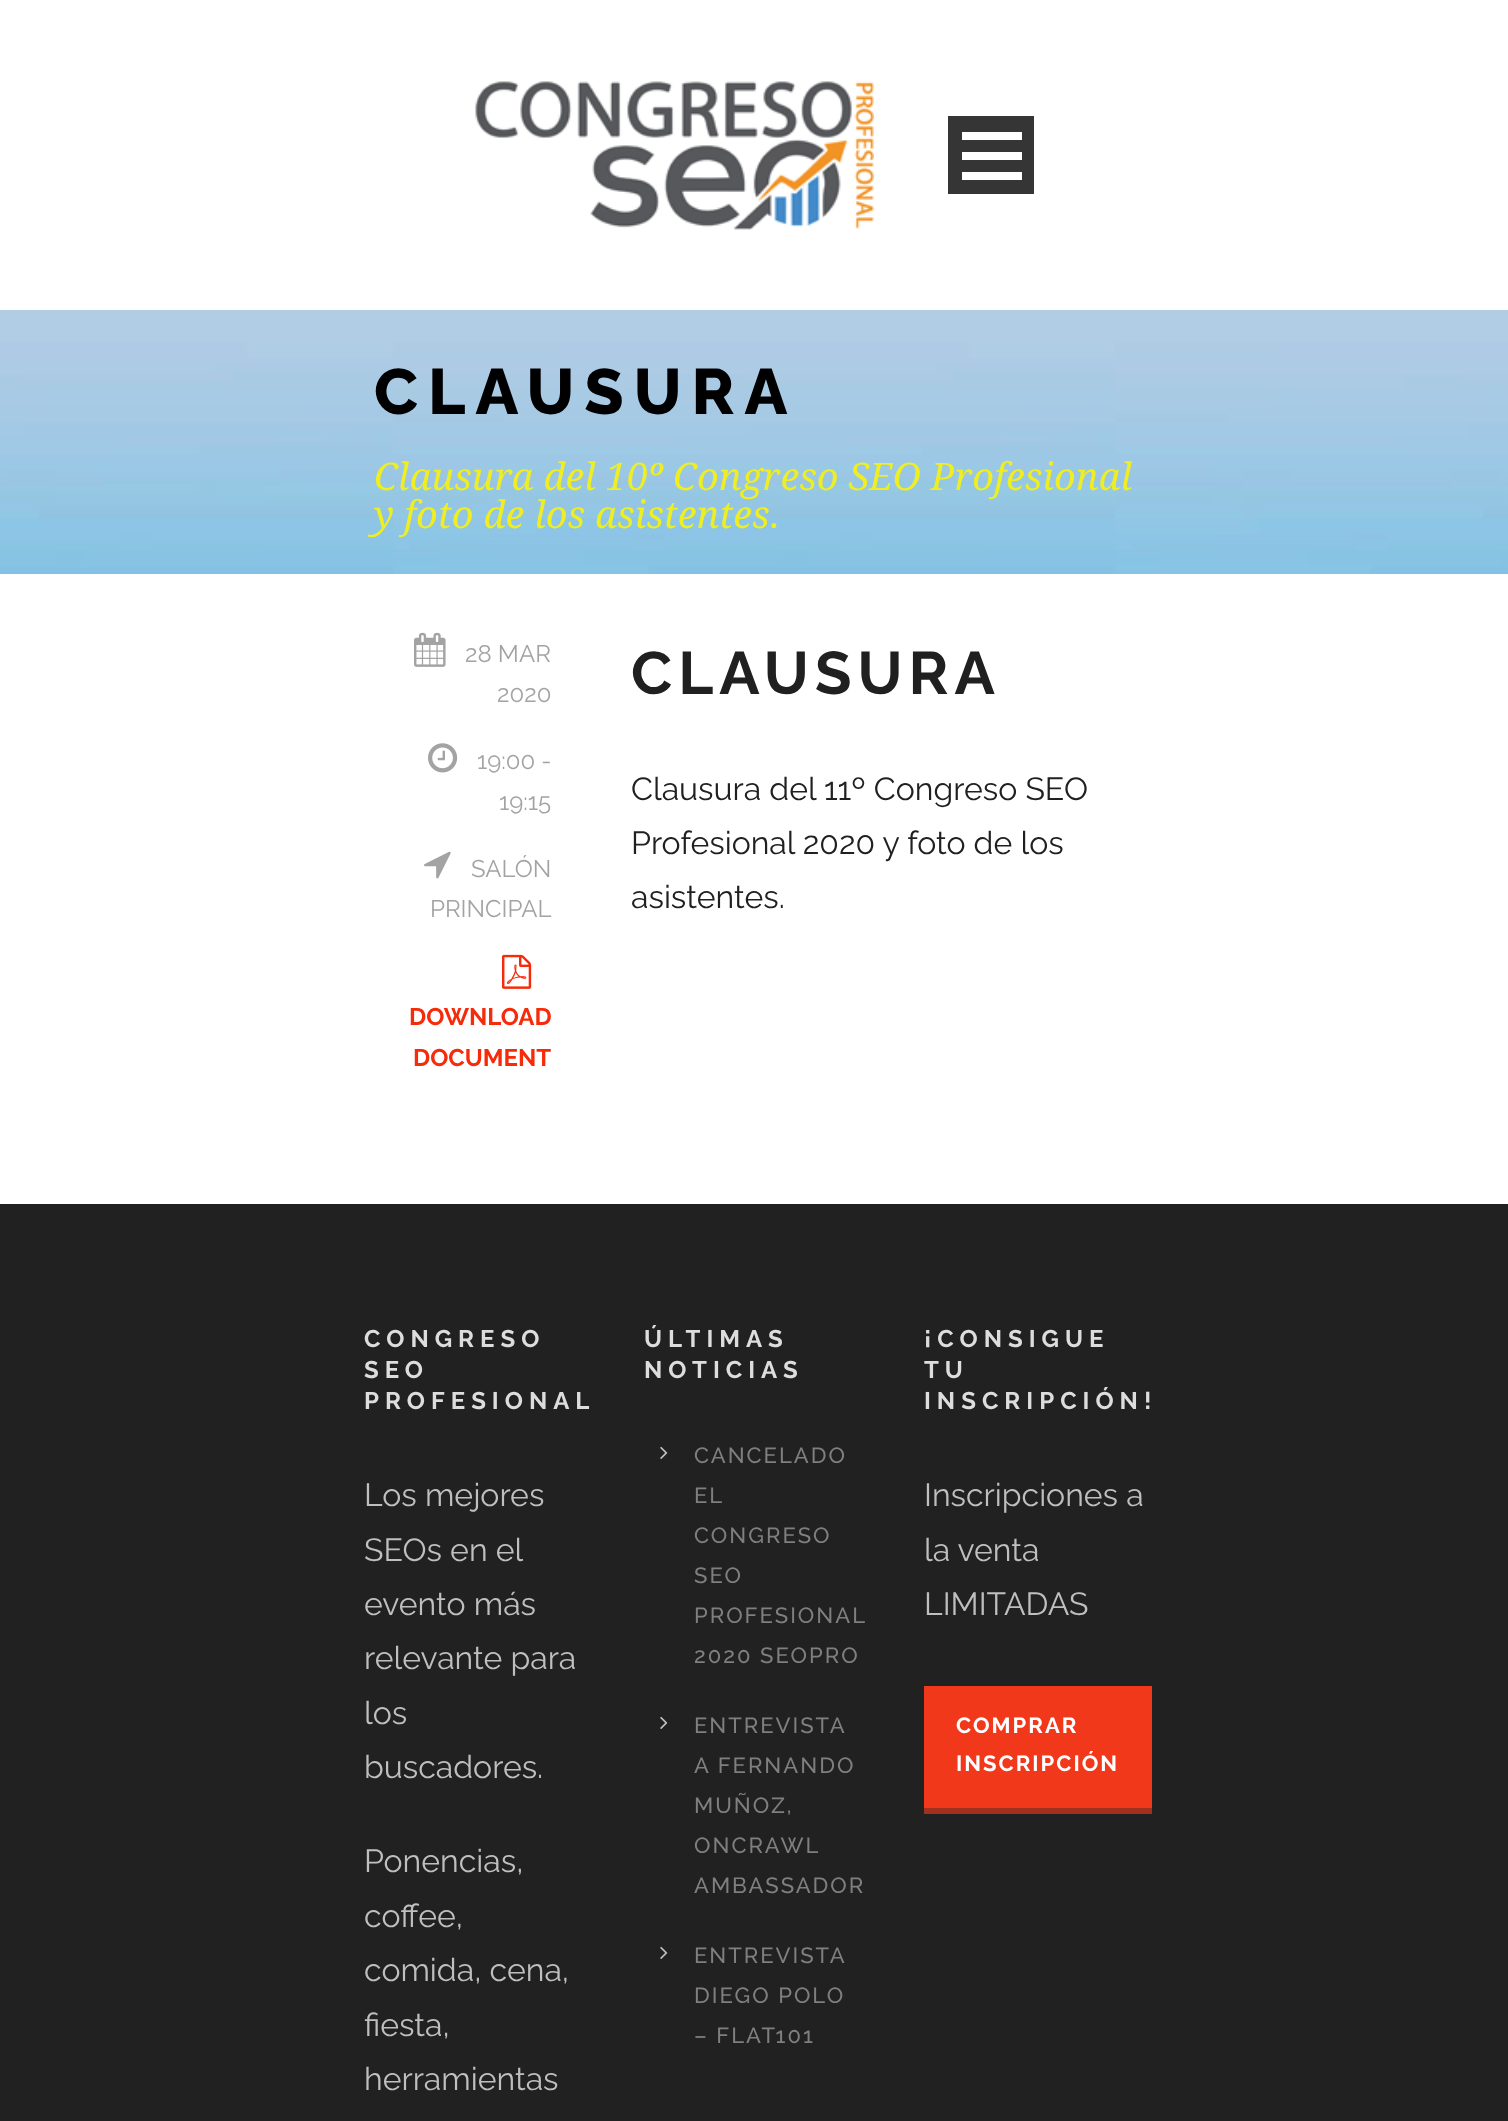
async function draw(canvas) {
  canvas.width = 1508
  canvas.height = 2121
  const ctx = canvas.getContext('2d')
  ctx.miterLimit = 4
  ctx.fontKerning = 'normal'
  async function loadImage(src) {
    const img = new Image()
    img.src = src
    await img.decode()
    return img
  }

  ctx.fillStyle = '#fff'
  ctx.fillRect(0, 0, 1508, 2121)
  ctx.drawImage(await loadImage('image0.png'), 475, 81, 399, 149)
  ctx.fillStyle = '#353535'
  ctx.fillRect(948, 116, 86, 78)
  ctx.fillStyle = '#fff'
  ctx.fillRect(962, 172, 60, 8)
  ctx.fillRect(962, 152, 60, 8)
  ctx.fillRect(962, 132, 60, 8)
  ctx.drawImage(await loadImage('image1.png'), 0, 310, 1508, 264)
  ctx.letterSpacing = '10px'
  ctx.font = '800 64px Raleway'
  ctx.fillStyle = '#000'
  ctx.fillText('CLAUSURA', 374, 414)
  ctx.letterSpacing = '0px'
  ctx.font = 'italic 38px Droid Serif'
  ctx.fillStyle = '#ee2'
  ctx.fillText('Clausura del 10º Congreso SEO Profesional', 374, 490)
  ctx.fillText('y foto de los asistentes.', 374, 528)
  ctx.drawImage(await loadImage('image2.png'), 414, 632, 32, 35)
  ctx.font = '24px Raleway'
  ctx.fillStyle = '#a3a3a3'
  ctx.fillText('28 MAR', 465, 662)
  ctx.fillText('2020', 497, 702)
  ctx.drawImage(await loadImage('image3.png'), 428, 743, 30, 30)
  ctx.fillText('19:00 -', 477, 769)
  ctx.fillText('19:15', 499, 810)
  ctx.drawImage(await loadImage('image4.png'), 424, 851, 27, 28)
  ctx.fillText('SALÓN', 471, 877)
  ctx.fillText('PRINCIPAL', 430, 917)
  ctx.drawImage(await loadImage('image5.png'), 502, 954, 30, 35)
  ctx.font = 'bold 24px Raleway'
  ctx.fillStyle = '#f62b0a'
  ctx.fillText('DOWNLOAD', 409, 1025)
  ctx.fillText('DOCUMENT', 413, 1066)
  ctx.letterSpacing = '6px'
  ctx.font = 'bold 60px Raleway'
  ctx.fillStyle = '#202020'
  ctx.fillText('CLAUSURA', 631, 694)
  ctx.letterSpacing = '0px'
  ctx.font = '32px Raleway'
  ctx.fillText('Clausura del 11º Congreso SEO', 631, 800)
  ctx.fillText('Profesional 2020 y foto de los', 631, 854)
  ctx.fillText('asistentes.', 631, 908)
  ctx.fillStyle = '#212121'
  ctx.fillRect(0, 1204, 1508, 917)
  ctx.letterSpacing = '6px'
  ctx.font = 'bold 24px Raleway'
  ctx.fillStyle = '#ddd'
  ctx.fillText('CONGRESO', 364, 1347)
  ctx.fillText('SEO', 364, 1378)
  ctx.fillText('PROFESIONAL', 364, 1409)
  ctx.letterSpacing = '0px'
  ctx.font = '32px Raleway'
  ctx.fillStyle = '#bfbfbf'
  ctx.fillText('Los mejores', 364, 1506)
  ctx.fillText('SEOs en el', 364, 1561)
  ctx.fillText('evento más', 364, 1615)
  ctx.fillText('relevante para', 364, 1669)
  ctx.fillText('los', 364, 1724)
  ctx.fillText('buscadores.', 364, 1778)
  ctx.fillText('Ponencias,', 364, 1872)
  ctx.fillText('coffee,', 364, 1927)
  ctx.fillText('comida, cena,', 364, 1981)
  ctx.fillText('fiesta,', 364, 2036)
  ctx.fillText('herramientas', 364, 2090)
  ctx.letterSpacing = '6px'
  ctx.font = 'bold 24px Raleway'
  ctx.fillStyle = '#ddd'
  ctx.fillText('ÚLTIMAS', 644, 1347)
  ctx.fillText('NOTICIAS', 644, 1378)
  ctx.drawImage(await loadImage('image6.png'), 660, 1446, 8, 13)
  ctx.letterSpacing = '2px'
  ctx.font = '500 22px Raleway'
  ctx.fillStyle = '#7f7f7f'
  ctx.fillText('CANCELADO', 694, 1463)
  ctx.fillText('EL', 694, 1503)
  ctx.fillText('CONGRESO', 694, 1543)
  ctx.fillText('SEO', 694, 1583)
  ctx.fillText('PROFESIONAL', 694, 1623)
  ctx.fillText('2020 SEOPRO', 694, 1663)
  ctx.drawImage(await loadImage('image6.png'), 660, 1716, 8, 13)
  ctx.fillText('ENTREVISTA', 694, 1733)
  ctx.fillText('A FERNANDO', 694, 1773)
  ctx.fillText('MUÑOZ,', 694, 1813)
  ctx.fillText('ONCRAWL', 694, 1853)
  ctx.fillText('AMBASSADOR', 694, 1893)
  ctx.drawImage(await loadImage('image6.png'), 660, 1946, 8, 13)
  ctx.fillText('ENTREVISTA', 694, 1963)
  ctx.fillText('DIEGO POLO', 694, 2003)
  ctx.fillText('– FLAT101', 694, 2043)
  ctx.letterSpacing = '6px'
  ctx.font = 'bold 24px Raleway'
  ctx.fillStyle = '#ddd'
  ctx.fillText('¡CONSIGUE', 924, 1347)
  ctx.fillText('TU', 924, 1378)
  ctx.fillText('INSCRIPCIÓN!', 924, 1409)
  ctx.letterSpacing = '0px'
  ctx.font = '32px Raleway'
  ctx.fillStyle = '#bfbfbf'
  ctx.fillText('Inscripciones a', 924, 1506)
  ctx.fillText('la venta', 924, 1561)
  ctx.fillText('LIMITADAS', 924, 1615)
  ctx.fillStyle = '#f2381a'
  ctx.fillRect(924, 1686, 228, 122)
  ctx.fillStyle = '#a1301e'
  ctx.fillRect(924, 1808, 228, 6)
  ctx.letterSpacing = '2px'
  ctx.font = 'bold 22px Raleway'
  ctx.fillStyle = '#fff'
  ctx.fillText('COMPRAR', 956, 1733)
  ctx.fillText('INSCRIPCIÓN', 956, 1771)
}

draw(document.querySelector('canvas'))
